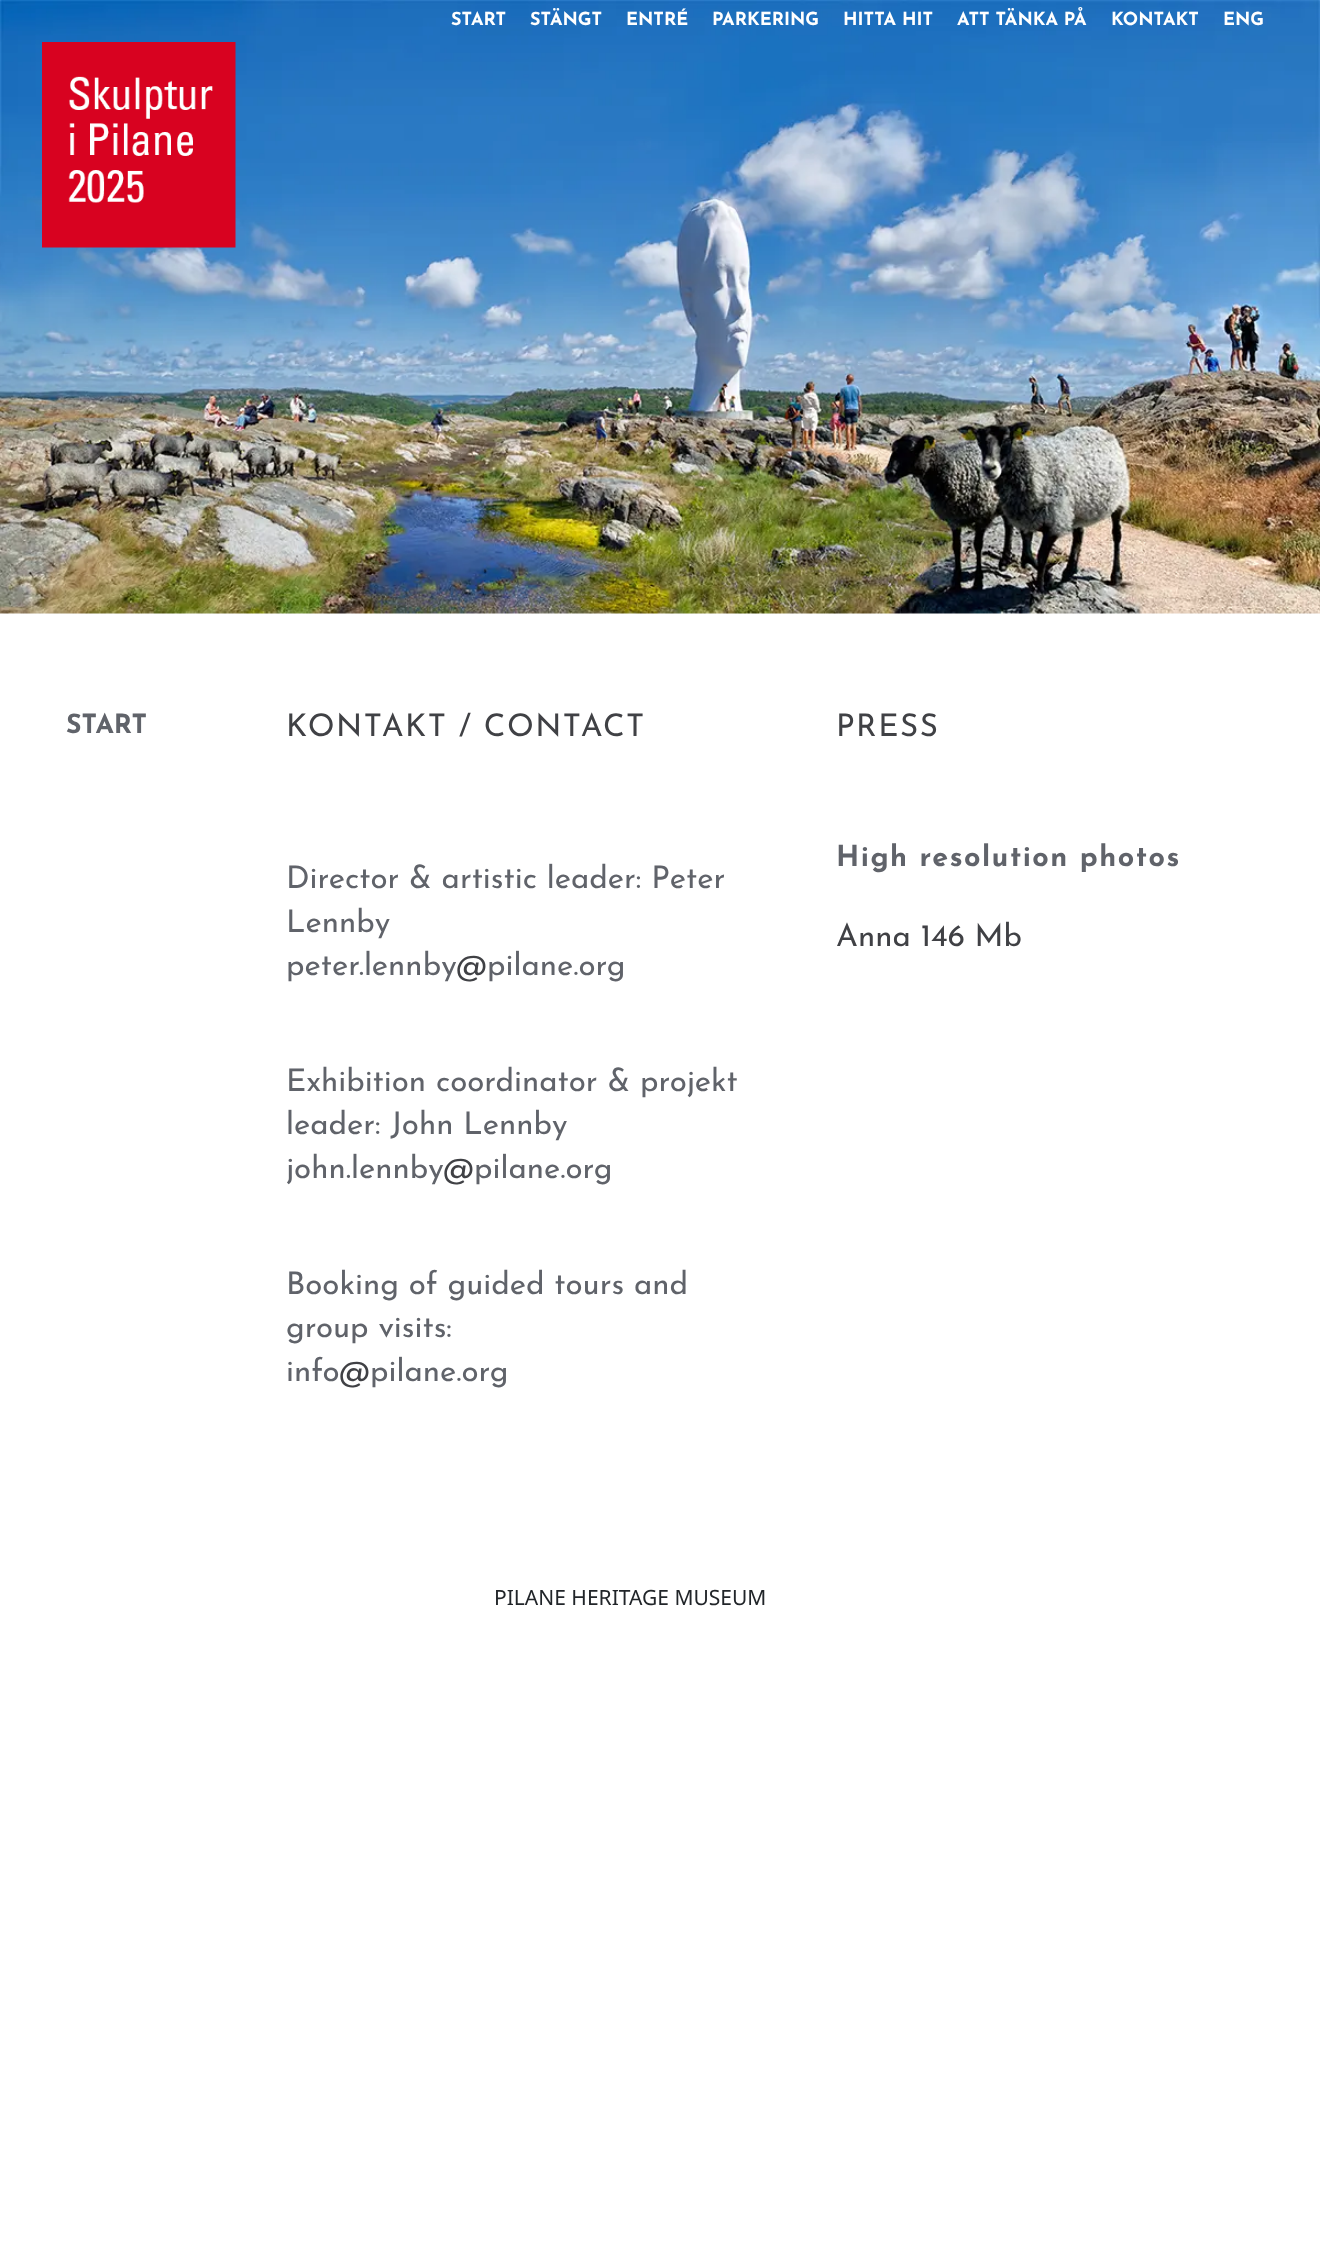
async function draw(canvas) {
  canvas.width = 1320
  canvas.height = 2250
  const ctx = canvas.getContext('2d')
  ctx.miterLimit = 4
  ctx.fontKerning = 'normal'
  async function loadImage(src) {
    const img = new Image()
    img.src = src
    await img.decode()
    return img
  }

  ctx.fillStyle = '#fff'
  ctx.fillRect(0, 0, 1320, 2250)
  ctx.drawImage(await loadImage('image0.png'), 0, 0, 1320, 614)
  ctx.font = 'bold 18px Josefin Sans'
  ctx.fillText('START', 451, 25)
  ctx.fillText('STÄNGT', 530, 25)
  ctx.fillText('ENTRÉ', 626, 25)
  ctx.fillText('PARKERING', 712, 25)
  ctx.fillText('HITTA HIT', 843, 25)
  ctx.fillText('ATT TÄNKA PÅ', 957, 25)
  ctx.fillText('KONTAKT', 1111, 25)
  ctx.fillText('ENG', 1223, 25)
  ctx.drawImage(await loadImage('image1.png'), 42, 42, 194, 206)
  ctx.font = 'bold 26.5px Josefin Sans'
  ctx.fillStyle = '#60636a'
  ctx.fillText('START', 66, 733)
  ctx.letterSpacing = '1.5px'
  ctx.font = '31.25px Josefin Sans'
  ctx.fillStyle = '#404145'
  ctx.fillText('KONTAKT / CONTACT', 286, 736)
  ctx.letterSpacing = '0px'
  ctx.fillStyle = '#60636a'
  ctx.fillText('Director & artistic leader: Peter', 286, 888)
  ctx.fillText('Lennby', 286, 932)
  ctx.fillText('peter.lennby', 286, 975)
  ctx.font = '30px Josefin Sans'
  ctx.fillStyle = '#404145'
  ctx.fillText('@', 456, 975)
  ctx.font = '31.25px Josefin Sans'
  ctx.fillStyle = '#60636a'
  ctx.fillText('pilane.org', 487, 975)
  ctx.fillText('Exhibition coordinator & projekt', 286, 1091)
  ctx.fillText('leader: John Lennby', 286, 1134)
  ctx.fillText('john.lennby', 286, 1178)
  ctx.font = '30px Josefin Sans'
  ctx.fillStyle = '#404145'
  ctx.fillText('@', 443, 1178)
  ctx.font = '31.25px Josefin Sans'
  ctx.fillStyle = '#60636a'
  ctx.fillText('pilane.org', 474, 1178)
  ctx.fillText('Booking of guided tours and', 286, 1294)
  ctx.fillText('group visits:', 286, 1337)
  ctx.fillText('info', 286, 1381)
  ctx.font = '30px Josefin Sans'
  ctx.fillStyle = '#404145'
  ctx.fillText('@', 339, 1381)
  ctx.font = '31.25px Josefin Sans'
  ctx.fillStyle = '#60636a'
  ctx.fillText('pilane.org', 370, 1381)
  ctx.letterSpacing = '1.5px'
  ctx.fillStyle = '#404145'
  ctx.fillText('PRESS', 836, 736)
  ctx.font = 'bold 28.75px Josefin Sans'
  ctx.fillStyle = '#60636a'
  ctx.fillText('High resolution photos', 836, 866)
  ctx.letterSpacing = '0px'
  ctx.font = '31.25px Josefin Sans'
  ctx.fillStyle = '#404145'
  ctx.fillText('Anna 146 Mb', 836, 946)
  ctx.font = '21px Noto Sans'
  ctx.fillStyle = '#212529'
  ctx.fillText('PILANE HERITAGE MUSEUM', 494, 1605)
}

draw(document.querySelector('canvas'))
